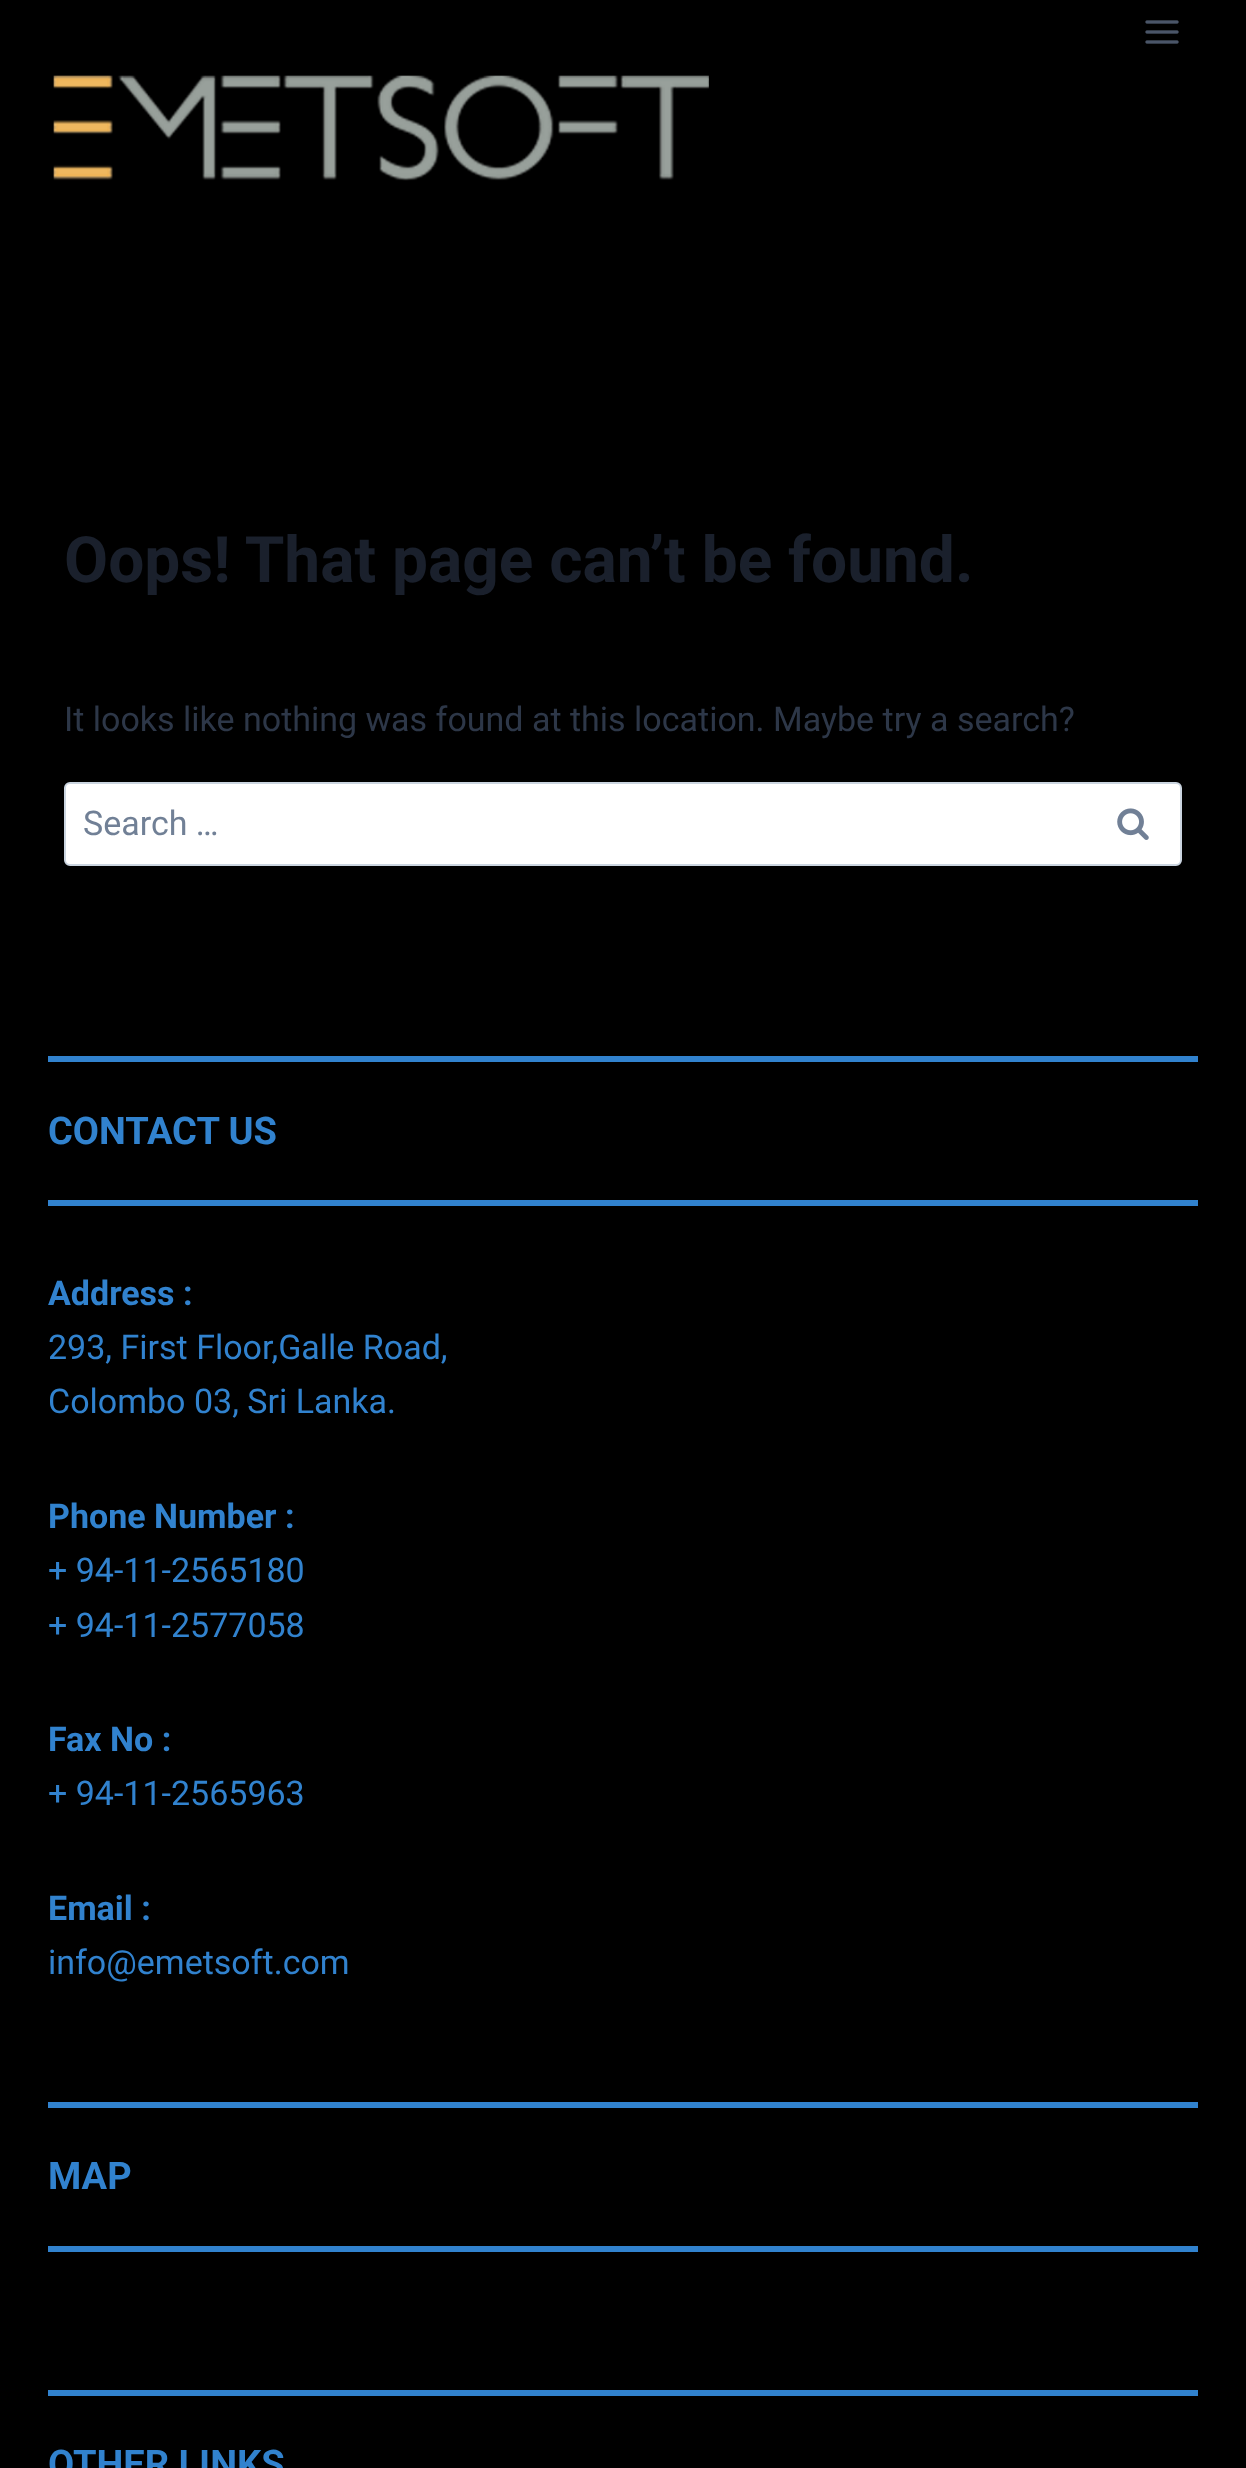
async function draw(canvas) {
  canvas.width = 1246
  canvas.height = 2468
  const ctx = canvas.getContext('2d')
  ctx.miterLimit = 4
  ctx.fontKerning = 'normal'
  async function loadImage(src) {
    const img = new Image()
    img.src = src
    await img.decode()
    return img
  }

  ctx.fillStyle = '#000'
  ctx.fillRect(0, 0, 1246, 2468)
  ctx.drawImage(await loadImage('image0.png'), 1145, 20, 34, 24)
  ctx.drawImage(await loadImage('image1.png'), 53, 75, 656, 106)
  ctx.font = 'bold 64px Roboto'
  ctx.fillStyle = '#1a202c'
  ctx.fillText('Oops! That page can’t be found.', 64, 582)
  ctx.font = '34px Roboto'
  ctx.fillStyle = '#2d3748'
  ctx.fillText('It looks like nothing was found at this location. Maybe try a search?', 64, 731)
  ctx.fillStyle = '#fff'
  ctx.beginPath()
  ctx.roundRect(65, 783, 1116, 82, 5)
  ctx.fill()
  ctx.strokeStyle = '#cbd5e0'
  ctx.lineWidth = 2
  ctx.stroke()
  ctx.fillStyle = '#718096'
  ctx.fillText('Search …', 83, 835)
  ctx.drawImage(await loadImage('image2.png'), 1117, 808, 32, 32)
  ctx.fillStyle = '#3182ce'
  ctx.fillRect(48, 1056, 1150, 6)
  ctx.font = 'bold 38px Roboto'
  ctx.fillText('CONTACT US', 48, 1144)
  ctx.fillRect(48, 1200, 1150, 6)
  ctx.font = 'bold 34px Roboto'
  ctx.fillText('Address :', 48, 1305)
  ctx.font = '34px Roboto'
  ctx.fillText('293, First Floor,Galle Road,', 48, 1359)
  ctx.fillText('Colombo 03, Sri Lanka.', 48, 1413)
  ctx.font = 'bold 34px Roboto'
  ctx.fillText('Phone Number :', 48, 1528)
  ctx.font = '34px Roboto'
  ctx.fillText('+ 94-11-2565180', 48, 1582)
  ctx.fillText('+ 94-11-2577058', 48, 1637)
  ctx.font = 'bold 34px Roboto'
  ctx.fillText('Fax No :', 48, 1751)
  ctx.font = '34px Roboto'
  ctx.fillText('+ 94-11-2565963', 48, 1805)
  ctx.font = 'bold 34px Roboto'
  ctx.fillText('Email :', 48, 1920)
  ctx.font = '34px Roboto'
  ctx.fillText('info@emetsoft.com', 48, 1974)
  ctx.fillRect(48, 2102, 1150, 6)
  ctx.font = 'bold 38px Roboto'
  ctx.fillText('MAP', 48, 2189)
  ctx.fillRect(48, 2246, 1150, 6)
  ctx.fillRect(48, 2390, 1150, 6)
  ctx.fillText('OTHER LINKS', 48, 2477)
}

draw(document.querySelector('canvas'))
